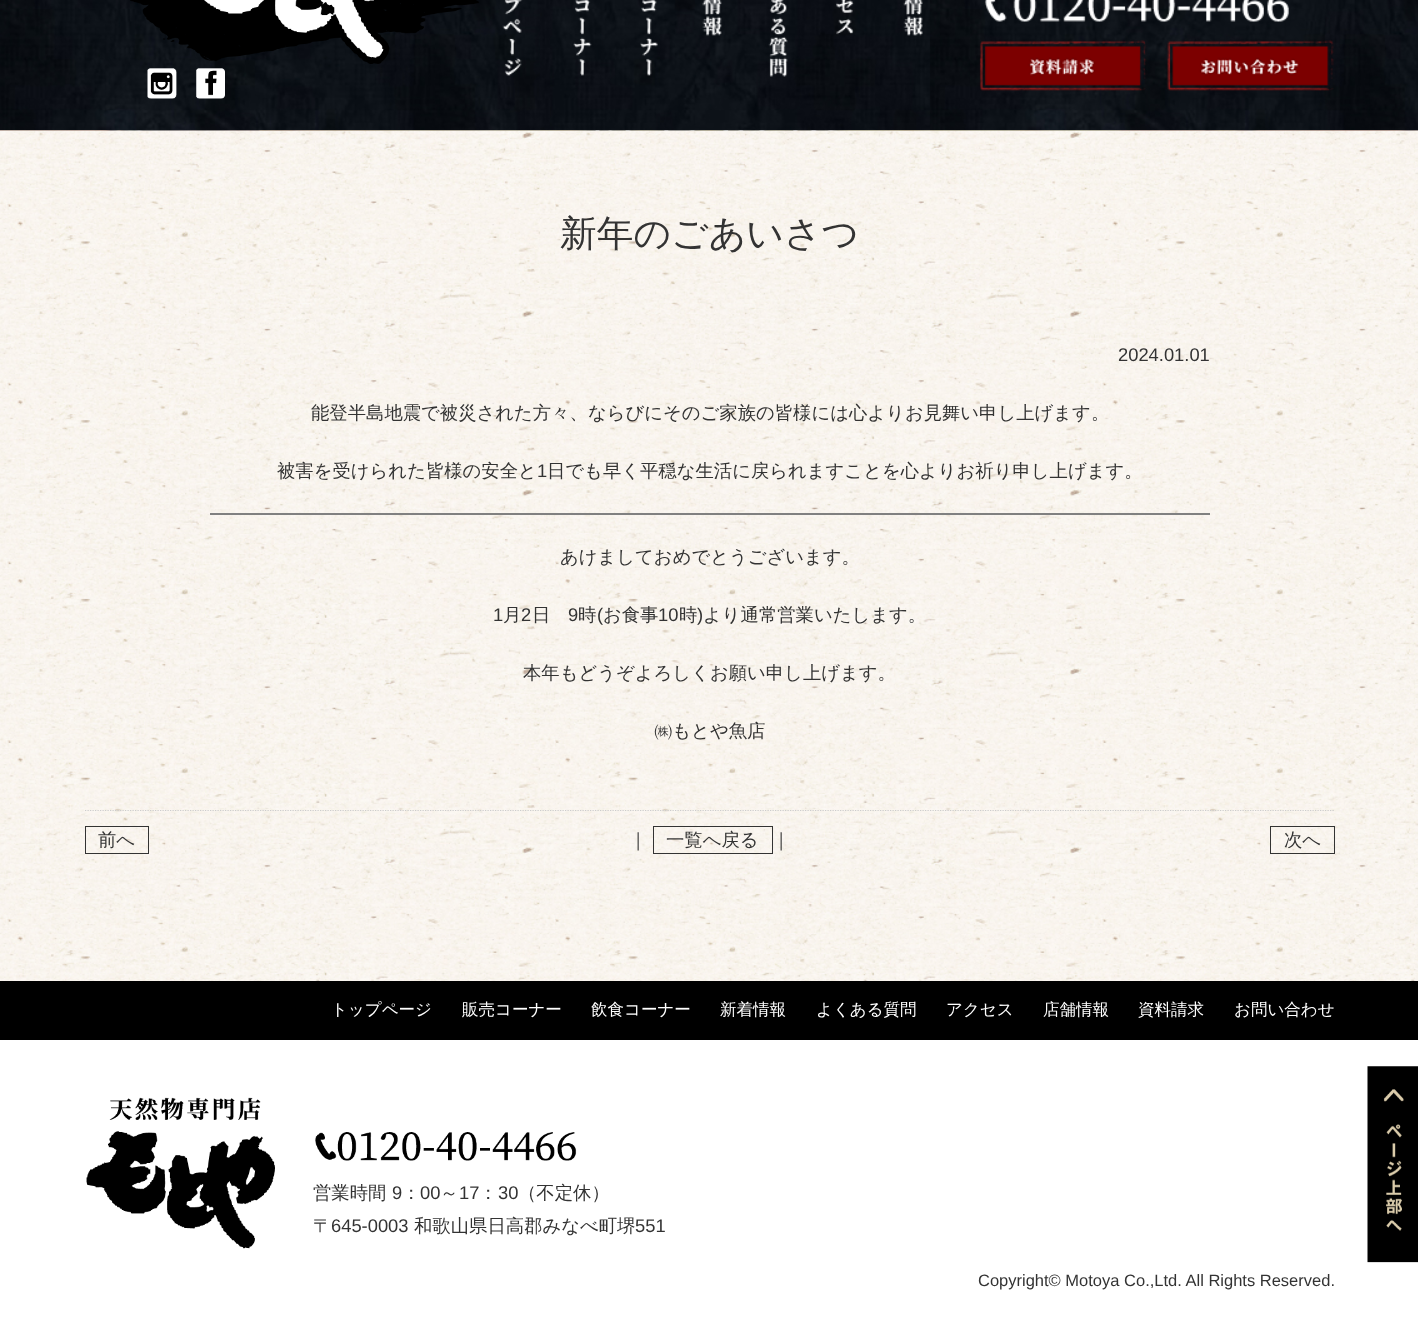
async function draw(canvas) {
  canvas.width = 1418
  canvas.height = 1322
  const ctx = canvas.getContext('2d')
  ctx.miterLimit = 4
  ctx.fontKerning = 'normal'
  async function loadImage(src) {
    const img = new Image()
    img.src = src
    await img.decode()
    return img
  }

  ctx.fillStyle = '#fff'
  ctx.fillRect(0, 0, 1418, 1322)
  ctx.drawImage(await loadImage('image15.png'), 0, 130, 1418, 851)
  ctx.drawImage(await loadImage('image0.png'), 0, 130, 1418, 1)
  ctx.drawImage(await loadImage('image1.png'), 0, 0, 1418, 131)
  ctx.drawImage(await loadImage('image2.png'), 130, 0, 349, 64)
  ctx.drawImage(await loadImage('image3.png'), 147, 68, 30, 31)
  ctx.drawImage(await loadImage('image4.png'), 196, 68, 29, 31)
  ctx.drawImage(await loadImage('image5.png'), 502, 0, 21, 76)
  ctx.drawImage(await loadImage('image6.png'), 573, 0, 19, 76)
  ctx.drawImage(await loadImage('image7.png'), 640, 0, 18, 76)
  ctx.drawImage(await loadImage('image8.png'), 702, 0, 20, 36)
  ctx.drawImage(await loadImage('image9.png'), 768, 0, 20, 77)
  ctx.drawImage(await loadImage('image10.png'), 836, 0, 18, 35)
  ctx.drawImage(await loadImage('image11.png'), 903, 0, 20, 36)
  ctx.drawImage(await loadImage('image12.png'), 984, 0, 305, 22)
  ctx.drawImage(await loadImage('image13.png'), 979, 40, 168, 51)
  ctx.drawImage(await loadImage('image14.png'), 1167, 40, 167, 51)
  ctx.font = '500 36.75px WenQuanYi Zen Hei'
  ctx.fillStyle = '#333'
  ctx.fillText('新年のごあいさつ', 560, 246)
  ctx.font = '18.35px Liberation Sans'
  ctx.fillText('2024.01.01', 1118, 361)
  ctx.font = '500 18.35px WenQuanYi Zen Hei'
  ctx.fillText('能登半島地震で被災された方々、ならびにそのご家族の皆様には心よりお見舞い申し上げます。', 311, 419)
  ctx.fillText('被害を受けられた皆様の安全と', 277, 477)
  ctx.font = '18.35px Liberation Sans'
  ctx.fillText('1', 537, 477)
  ctx.font = '500 18.35px WenQuanYi Zen Hei'
  ctx.fillText('日でも早く平穏な生活に戻られますことを心よりお祈り申し上げます。', 547, 477)
  ctx.fillStyle = '#808080'
  ctx.fillRect(210, 513, 1000, 2)
  ctx.fillStyle = '#333'
  ctx.fillText('あけましておめでとうございます。', 560, 563)
  ctx.font = '18.35px Liberation Sans'
  ctx.fillText('1', 493, 621)
  ctx.font = '500 18.35px WenQuanYi Zen Hei'
  ctx.fillText('月', 503, 621)
  ctx.font = '18.35px Liberation Sans'
  ctx.fillText('2', 521, 621)
  ctx.font = '500 18.35px WenQuanYi Zen Hei'
  ctx.fillText('日', 532, 621)
  ctx.font = '18.35px Liberation Sans'
  ctx.fillText('9', 568, 621)
  ctx.font = '500 18.35px WenQuanYi Zen Hei'
  ctx.fillText('時', 578, 621)
  ctx.font = '18.35px Liberation Sans'
  ctx.fillText('(', 597, 621)
  ctx.font = '500 18.35px WenQuanYi Zen Hei'
  ctx.fillText('お食事', 603, 621)
  ctx.font = '18.35px Liberation Sans'
  ctx.fillText('10', 658, 621)
  ctx.font = '500 18.35px WenQuanYi Zen Hei'
  ctx.fillText('時', 679, 621)
  ctx.font = '18.35px Liberation Sans'
  ctx.fillText(')', 697, 621)
  ctx.font = '500 18.35px WenQuanYi Zen Hei'
  ctx.fillText('より通常営業いたします。', 703, 621)
  ctx.fillText('本年もどうぞよろしくお願い申し上げます。', 523, 679)
  ctx.fillText('㈱もとや魚店', 654, 737)
  ctx.beginPath()
  ctx.moveTo(85, 810.5)
  ctx.lineTo(1335, 810.5)
  ctx.strokeStyle = '#ccc'
  ctx.lineWidth = 1.2
  ctx.setLineDash([1.25, 1.25])
  ctx.stroke()
  ctx.strokeStyle = '#333'
  ctx.lineWidth = 1
  ctx.setLineDash([])
  ctx.strokeRect(85.5, 826.5, 63, 27)
  ctx.fillText('前へ', 98, 846)
  ctx.fillText('｜', 629, 846)
  ctx.strokeRect(653.5, 826.5, 119, 27)
  ctx.fillText('一覧へ戻る', 666, 846)
  ctx.fillText('｜', 772, 846)
  ctx.strokeRect(1270.5, 826.5, 64, 27)
  ctx.fillText('次へ', 1284, 846)
  ctx.fillStyle = '#000'
  ctx.fillRect(0, 981, 1418, 59)
  ctx.font = '500 16.5px WenQuanYi Zen Hei'
  ctx.fillStyle = '#fff'
  ctx.fillText('トップページ', 331, 1015)
  ctx.fillText('販売コーナー', 462, 1015)
  ctx.fillText('飲食コーナー', 591, 1015)
  ctx.fillText('新着情報', 720, 1015)
  ctx.fillText('よくある質問', 816, 1015)
  ctx.fillText('アクセス', 946, 1015)
  ctx.fillText('店舗情報', 1043, 1015)
  ctx.fillText('資料請求', 1138, 1015)
  ctx.fillText('お問い合わせ', 1234, 1015)
  ctx.drawImage(await loadImage('image16.png'), 86, 1097, 189, 152)
  ctx.drawImage(await loadImage('image17.png'), 315, 1132, 262, 29)
  ctx.font = '500 18.35px WenQuanYi Zen Hei'
  ctx.fillStyle = '#333'
  ctx.fillText('営業時間', 313, 1199)
  ctx.font = '18.35px Liberation Sans'
  ctx.fillText('9', 392, 1199)
  ctx.font = '500 18.35px WenQuanYi Zen Hei'
  ctx.fillText('：', 402, 1199)
  ctx.font = '18.35px Liberation Sans'
  ctx.fillText('00', 420, 1199)
  ctx.font = '500 18.35px WenQuanYi Zen Hei'
  ctx.fillText('～', 440, 1199)
  ctx.font = '18.35px Liberation Sans'
  ctx.fillText('17', 459, 1199)
  ctx.font = '500 18.35px WenQuanYi Zen Hei'
  ctx.fillText('：', 479, 1199)
  ctx.font = '18.35px Liberation Sans'
  ctx.fillText('30', 498, 1199)
  ctx.font = '500 18.35px WenQuanYi Zen Hei'
  ctx.fillText('（不定休）', 518, 1199)
  ctx.fillText('〒', 313, 1232)
  ctx.font = '18.35px Liberation Sans'
  ctx.fillText('645-0003', 331, 1232)
  ctx.font = '500 18.35px WenQuanYi Zen Hei'
  ctx.fillText('和歌山県日高郡みなべ町堺', 414, 1232)
  ctx.font = '18.35px Liberation Sans'
  ctx.fillText('551', 635, 1232)
  ctx.font = '16.5px Liberation Sans'
  ctx.fillText('Copyright© Motoya Co.,Ltd. All Rights Reserved.', 978, 1286)
  ctx.drawImage(await loadImage('image18.png'), 1367, 1066, 51, 197)
}

draw(document.querySelector('canvas'))
